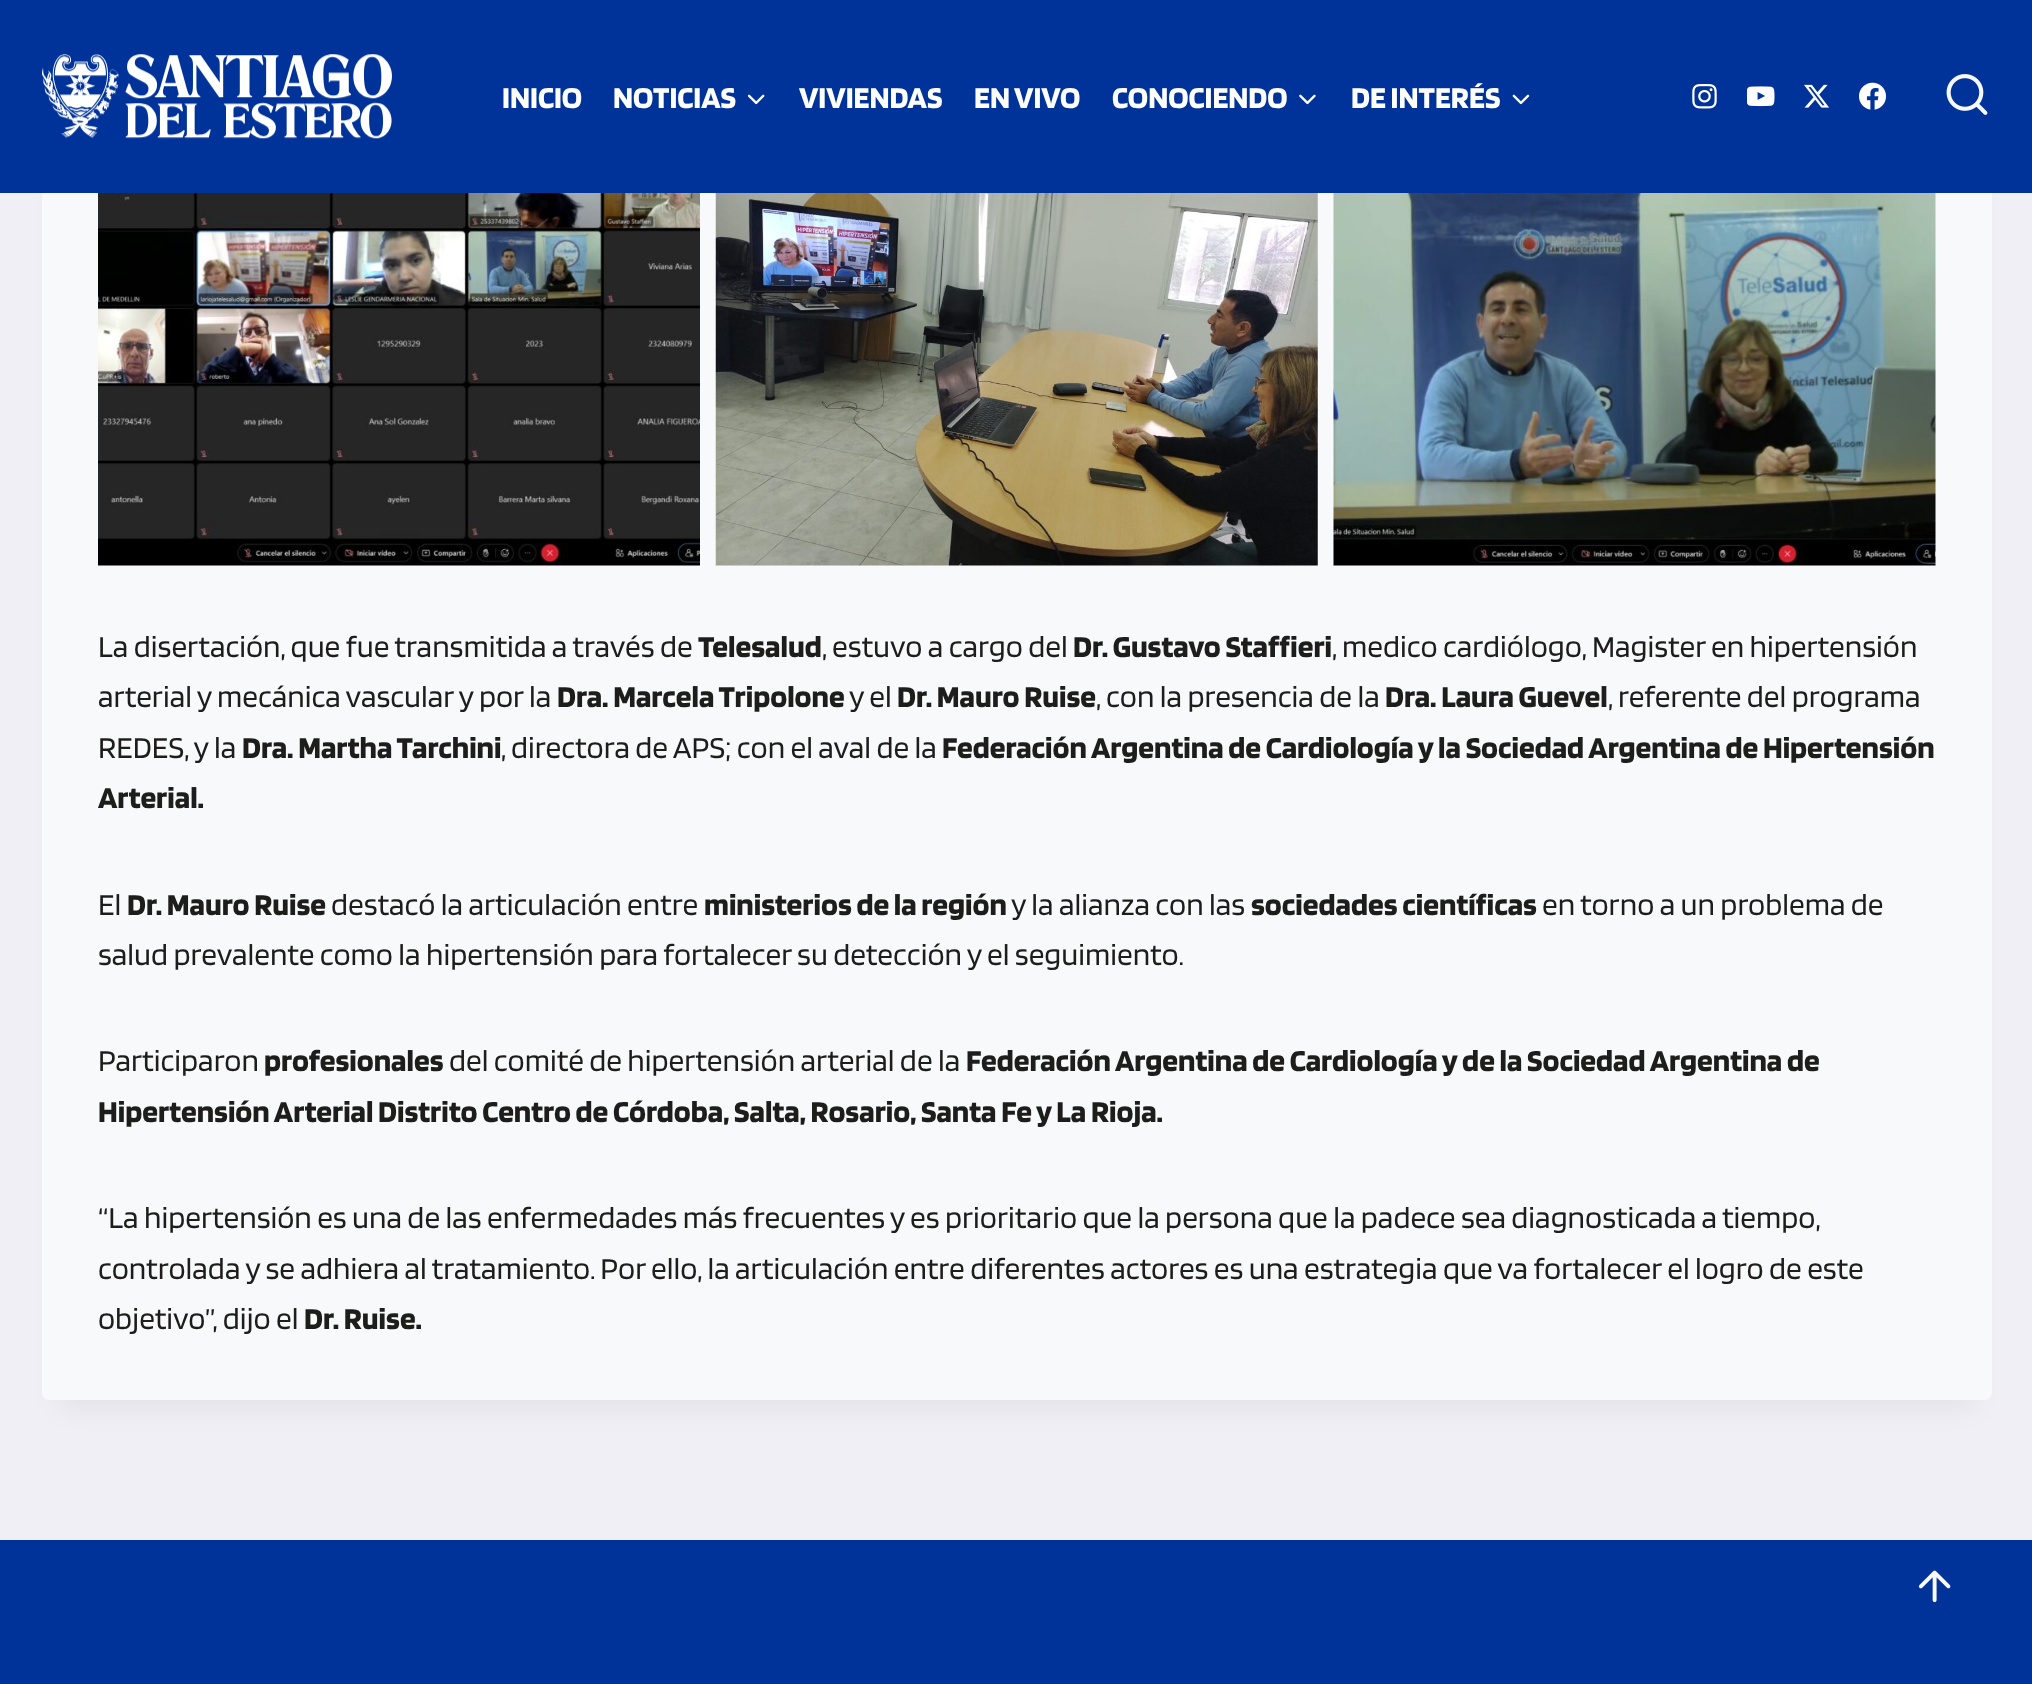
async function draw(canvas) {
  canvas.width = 2032
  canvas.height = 1684
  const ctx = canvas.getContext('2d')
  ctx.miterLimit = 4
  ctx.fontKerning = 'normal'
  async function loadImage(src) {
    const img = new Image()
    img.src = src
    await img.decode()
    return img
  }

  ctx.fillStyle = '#efeff5'
  ctx.fillRect(0, 0, 2032, 1684)
  ctx.fillStyle = '#0000000d'
  ctx.filter = 'blur(13px)'
  ctx.beginPath()
  ctx.rect(60, -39, 1914, 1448)
  ctx.fill()
  ctx.filter = 'none'
  ctx.fillStyle = '#f8f9fa'
  ctx.beginPath()
  ctx.roundRect(42, -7, 1950, 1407, 7)
  ctx.fill()
  ctx.fillStyle = '#039'
  ctx.fillRect(0, 0, 2032, 193)
  ctx.drawImage(await loadImage('image0.png'), 42, 54, 350, 85)
  ctx.font = 'bold 31.5px Blinker'
  ctx.fillStyle = '#fff'
  ctx.fillText('INICIO', 502, 108)
  ctx.fillText('NOTICIAS', 613, 108)
  ctx.drawImage(await loadImage('image1.png'), 747, 94, 18, 11)
  ctx.fillText('VIVIENDAS', 799, 108)
  ctx.fillText('EN VIVO', 974, 108)
  ctx.fillText('CONOCIENDO', 1112, 108)
  ctx.drawImage(await loadImage('image2.png'), 1299, 94, 17, 11)
  ctx.fillText('DE INTERÉS', 1351, 108)
  ctx.drawImage(await loadImage('image3.png'), 1512, 94, 18, 11)
  ctx.drawImage(await loadImage('image4.png'), 1692, 84, 25, 25)
  ctx.drawImage(await loadImage('image5.png'), 1747, 86, 28, 21)
  ctx.drawImage(await loadImage('image6.png'), 1804, 84, 25, 24)
  ctx.drawImage(await loadImage('image7.png'), 1859, 82, 28, 28)
  ctx.drawImage(await loadImage('image8.png'), 1946, 74, 42, 41)
  ctx.drawImage(await loadImage('image9.png'), 98, 193, 602, 373)
  ctx.drawImage(await loadImage('image10.png'), 715, 193, 603, 373)
  ctx.drawImage(await loadImage('image11.png'), 1333, 193, 603, 373)
  ctx.font = '31.5px Blinker'
  ctx.fillStyle = '#1d1d1b'
  ctx.fillText('La disertación, que fue transmitida a través de', 98, 657)
  ctx.font = 'bold 31.5px Blinker'
  ctx.fillText('Telesalud', 698, 657)
  ctx.font = '31.5px Blinker'
  ctx.fillText(', estuvo a cargo del', 822, 657)
  ctx.font = 'bold 31.5px Blinker'
  ctx.fillText('Dr. Gustavo Staffieri', 1073, 657)
  ctx.font = '31.5px Blinker'
  ctx.fillText(', medico cardiólogo, Magister en hipertensión', 1332, 657)
  ctx.fillText('arterial y mecánica vascular y por la', 98, 707)
  ctx.font = 'bold 31.5px Blinker'
  ctx.fillText('Dra. Marcela Tripolone', 557, 707)
  ctx.font = '31.5px Blinker'
  ctx.fillText('y el', 849, 707)
  ctx.font = 'bold 31.5px Blinker'
  ctx.fillText('Dr. Mauro Ruise', 897, 707)
  ctx.font = '31.5px Blinker'
  ctx.fillText(', con la presencia de la', 1096, 707)
  ctx.font = 'bold 31.5px Blinker'
  ctx.fillText('Dra. Laura Guevel', 1385, 707)
  ctx.font = '31.5px Blinker'
  ctx.fillText(', referente del programa', 1608, 707)
  ctx.fillText('REDES, y la', 98, 758)
  ctx.font = 'bold 31.5px Blinker'
  ctx.fillText('Dra. Martha Tarchini', 242, 758)
  ctx.font = '31.5px Blinker'
  ctx.fillText(', directora de APS; con el aval de la', 501, 758)
  ctx.font = 'bold 31.5px Blinker'
  ctx.fillText('Federación Argentina de Cardiología y la Sociedad Argentina de Hipertensión', 942, 758)
  ctx.fillText('Arterial.', 98, 808)
  ctx.font = '31.5px Blinker'
  ctx.fillText('El', 98, 915)
  ctx.font = 'bold 31.5px Blinker'
  ctx.fillText('Dr. Mauro Ruise', 127, 915)
  ctx.font = '31.5px Blinker'
  ctx.fillText('destacó la articulación entre', 331, 915)
  ctx.font = 'bold 31.5px Blinker'
  ctx.fillText('ministerios de la región', 704, 915)
  ctx.font = '31.5px Blinker'
  ctx.fillText('y la alianza con las', 1011, 915)
  ctx.font = 'bold 31.5px Blinker'
  ctx.fillText('sociedades científicas', 1251, 915)
  ctx.font = '31.5px Blinker'
  ctx.fillText('en torno a un problema de', 1542, 915)
  ctx.fillText('salud prevalente como la hipertensión para fortalecer su detección y el seguimiento.', 98, 965)
  ctx.fillText('Participaron', 98, 1071)
  ctx.font = 'bold 31.5px Blinker'
  ctx.fillText('profesionales', 264, 1071)
  ctx.font = '31.5px Blinker'
  ctx.fillText('del comité de hipertensión arterial de la', 449, 1071)
  ctx.font = 'bold 31.5px Blinker'
  ctx.fillText('Federación Argentina de Cardiología y de la Sociedad Argentina de', 966, 1071)
  ctx.fillText('Hipertensión Arterial Distrito Centro de Córdoba, Salta, Rosario, Santa Fe y La Rioja.', 98, 1122)
  ctx.font = '31.5px Blinker'
  ctx.fillText('“La hipertensión es una de las enfermedades más frecuentes y es prioritario que la persona que la padece sea diagnosticada a tiempo,', 98, 1228)
  ctx.fillText('controlada y se adhiera al tratamiento. Por ello, la articulación entre diferentes actores es una estrategia que va fortalecer el logro de este', 98, 1279)
  ctx.fillText('objetivo”, dijo el', 98, 1329)
  ctx.font = 'bold 31.5px Blinker'
  ctx.fillText('Dr. Ruise.', 304, 1329)
  ctx.fillStyle = '#039'
  ctx.fillRect(0, 1540, 2032, 144)
  ctx.drawImage(await loadImage('image12.png'), 1918, 1570, 33, 33)
}

draw(document.querySelector('canvas'))
